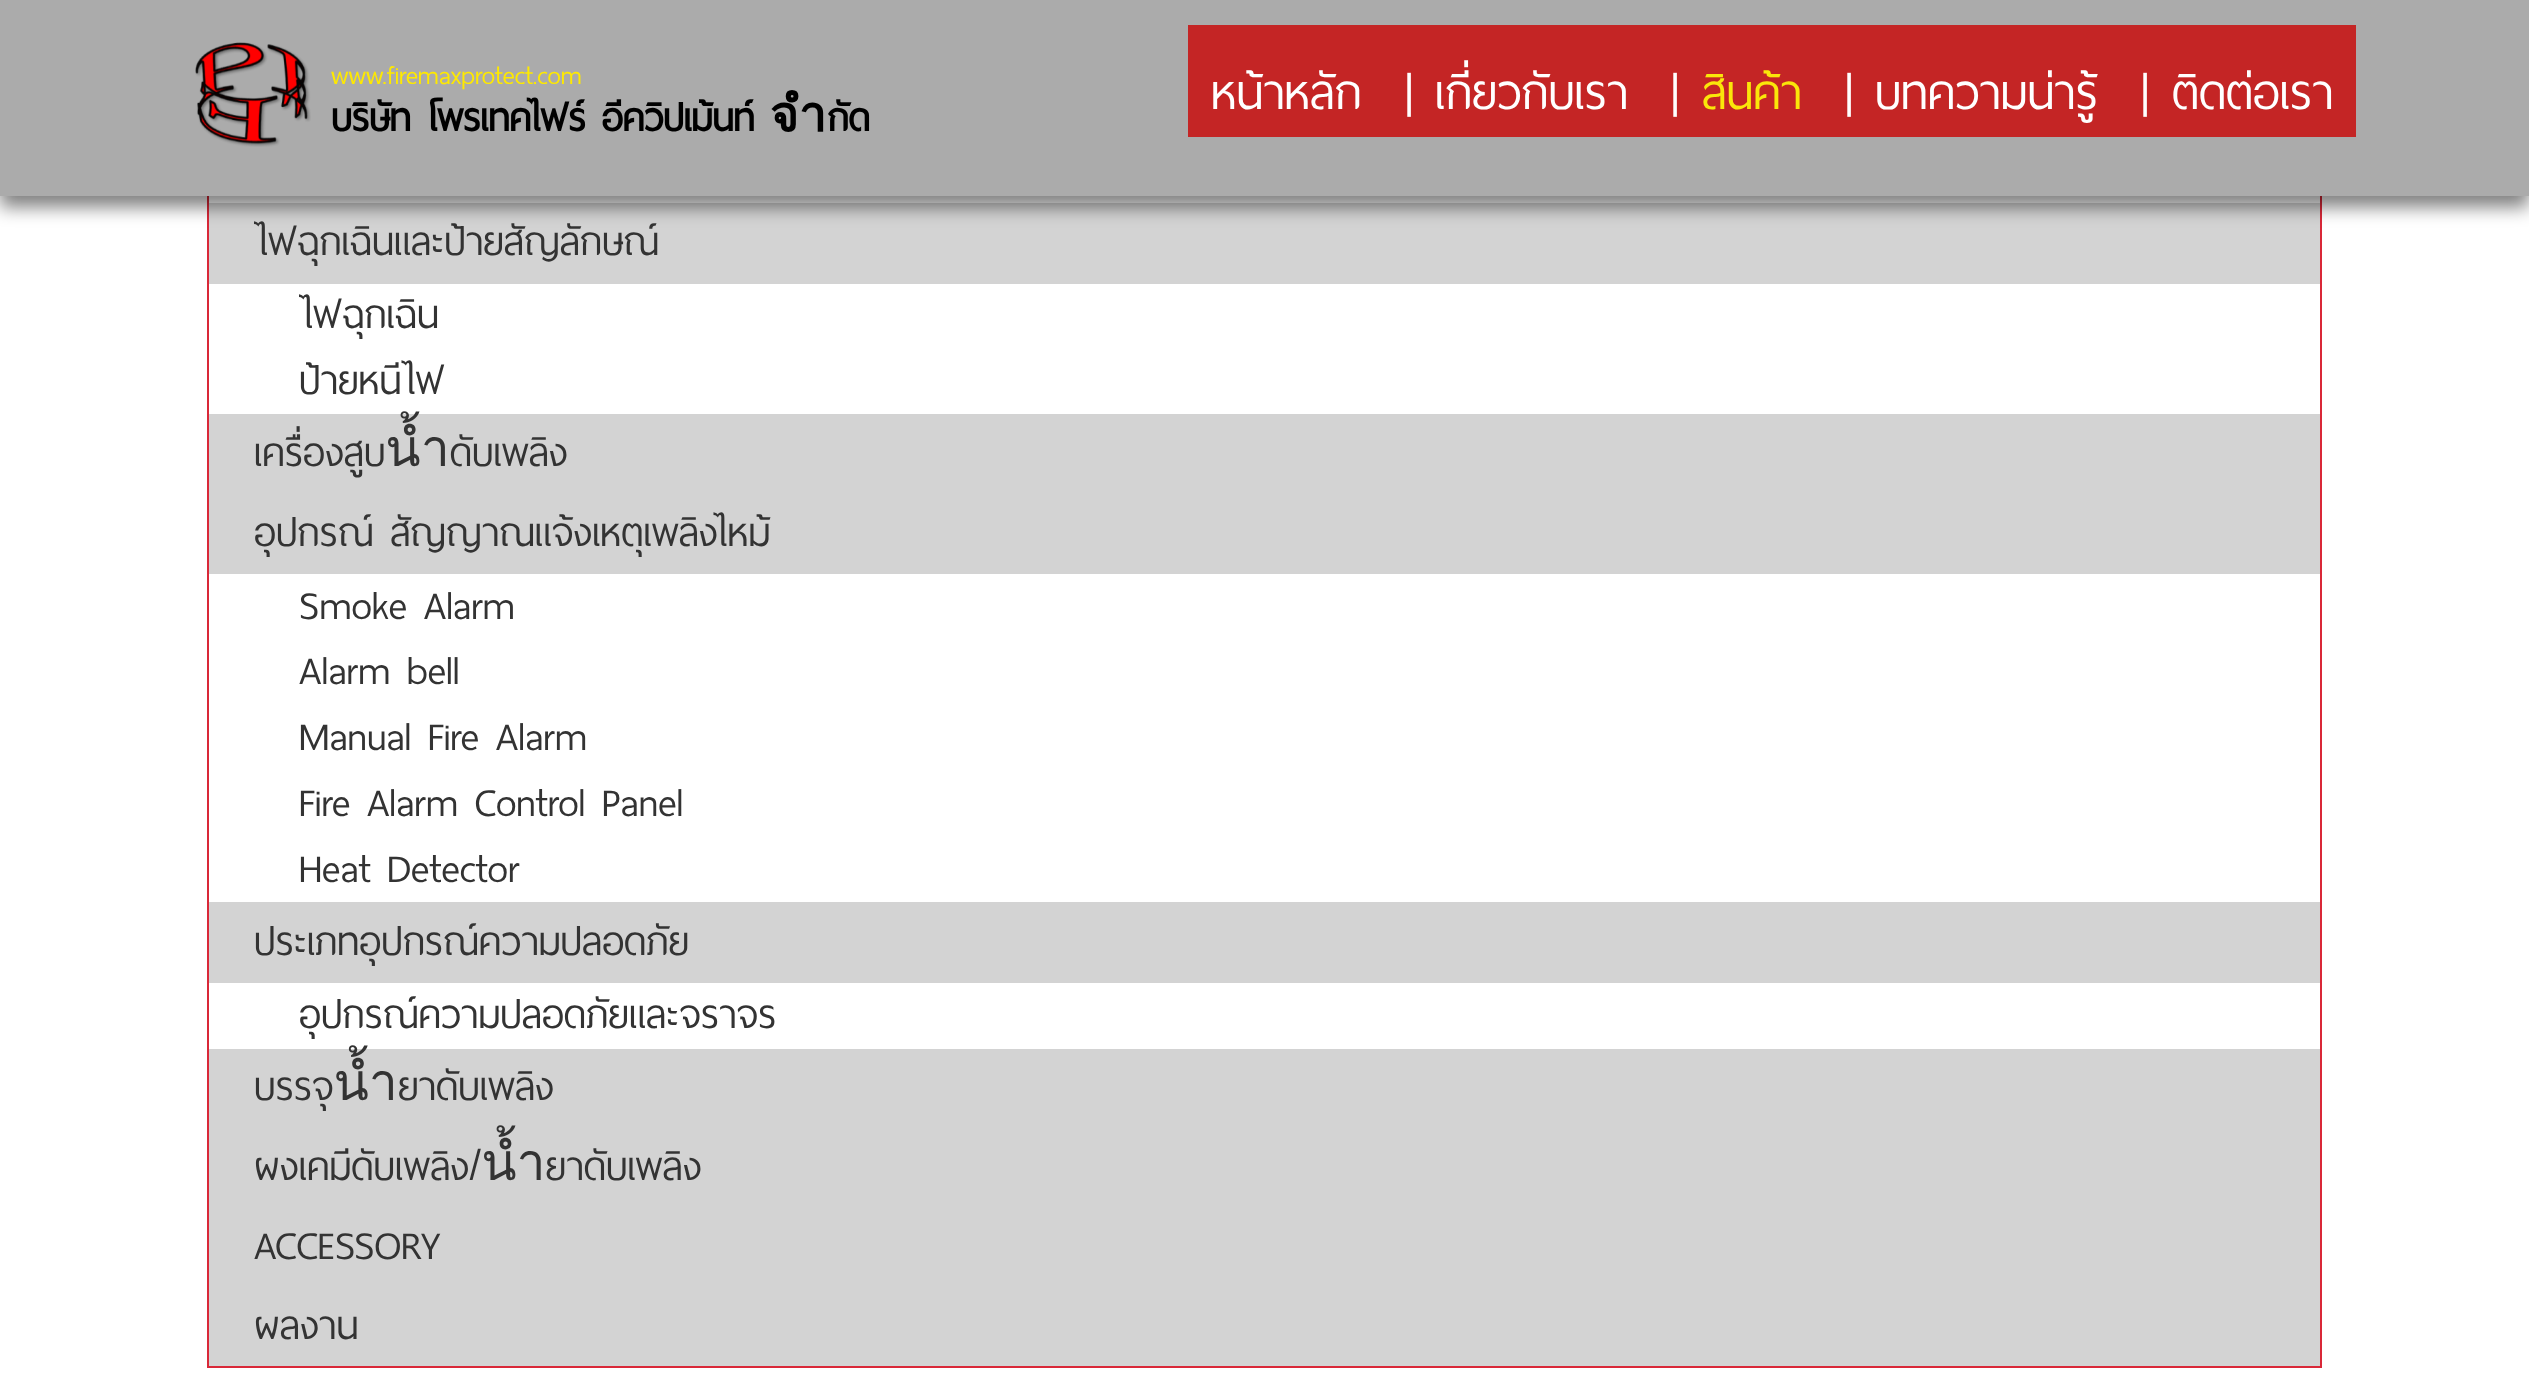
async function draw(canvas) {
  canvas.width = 2529
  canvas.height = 1393
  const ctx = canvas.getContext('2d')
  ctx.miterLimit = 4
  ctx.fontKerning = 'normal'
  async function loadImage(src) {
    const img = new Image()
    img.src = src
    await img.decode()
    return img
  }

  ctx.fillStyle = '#fff'
  ctx.fillRect(0, 0, 2529, 1393)
  ctx.strokeStyle = '#d92838'
  ctx.lineWidth = 2
  ctx.strokeRect(208, -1, 2113, 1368)
  ctx.fillStyle = '#d3d3d3'
  ctx.fillRect(209, 203, 2111, 81)
  ctx.fillStyle = '#00000080'
  ctx.filter = 'blur(9px)'
  ctx.beginPath()
  ctx.rect(0, 11, 2529, 196)
  ctx.fill()
  ctx.filter = 'none'
  ctx.fillStyle = '#ababab'
  ctx.fillRect(0, 0, 2529, 196)
  ctx.drawImage(await loadImage('image0.png'), 195, 42, 116, 105)
  ctx.font = '33.75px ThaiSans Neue'
  ctx.fillStyle = '#fee900'
  ctx.fillText('www.firemaxprotect.com', 331, 84)
  ctx.font = 'bold 49.5px ThaiSans Neue'
  ctx.fillStyle = '#000'
  ctx.fillText('บริษัท โพรเทคไฟร์ อีควิปเม้นท์ จำกัด', 331, 131)
  ctx.fillStyle = '#c42525'
  ctx.fillRect(1188, 25, 1168, 112)
  ctx.font = '63px ThaiSans Neue'
  ctx.fillStyle = '#fff'
  ctx.fillText('หน้าหลัก', 1211, 109)
  ctx.fillText('|', 1405, 109)
  ctx.fillText('เกี่ยวกับเรา', 1435, 109)
  ctx.fillText('|', 1671, 109)
  ctx.fillStyle = '#fae60a'
  ctx.fillText('สินค้า', 1702, 109)
  ctx.fillStyle = '#fff'
  ctx.fillText('|', 1845, 109)
  ctx.fillText('บทความน่ารู้', 1875, 109)
  ctx.fillText('|', 2141, 109)
  ctx.fillText('ติดต่อเรา', 2172, 109)
  ctx.font = '51.75px ThaiSans Neue'
  ctx.fillStyle = '#333'
  ctx.fillText('ไฟฉุกเฉินและป้ายสัญลักษณ์', 254, 255)
  ctx.fillText('ไฟฉุกเฉิน', 299, 328)
  ctx.fillText('ป้ายหนีไฟ', 299, 394)
  ctx.fillStyle = '#d3d3d3'
  ctx.fillRect(209, 414, 2111, 160)
  ctx.fillStyle = '#333'
  ctx.fillText('เครื่องสูบน้ำดับเพลิง', 254, 466)
  ctx.fillText('อุปกรณ์ สัญญาณแจ้งเหตุเพลิงไหม้', 254, 546)
  ctx.fillText('Smoke Alarm', 299, 619)
  ctx.fillText('Alarm bell', 299, 684)
  ctx.fillText('Manual Fire Alarm', 299, 750)
  ctx.fillText('Fire Alarm Control Panel', 299, 816)
  ctx.fillText('Heat Detector', 299, 882)
  ctx.fillStyle = '#d3d3d3'
  ctx.fillRect(209, 902, 2111, 81)
  ctx.fillStyle = '#333'
  ctx.fillText('ประเภทอุปกรณ์ความปลอดภัย', 254, 955)
  ctx.fillText('อุปกรณ์ความปลอดภัยและจราจร', 299, 1028)
  ctx.fillStyle = '#d3d3d3'
  ctx.fillRect(209, 1049, 2111, 317)
  ctx.fillStyle = '#333'
  ctx.fillText('บรรจุน้ำยาดับเพลิง', 254, 1100)
  ctx.fillText('ผงเคมีดับเพลิง/น้ำยาดับเพลิง', 254, 1180)
  ctx.fillText('ACCESSORY', 254, 1259)
  ctx.fillText('ผลงาน', 254, 1339)
}

draw(document.querySelector('canvas'))
